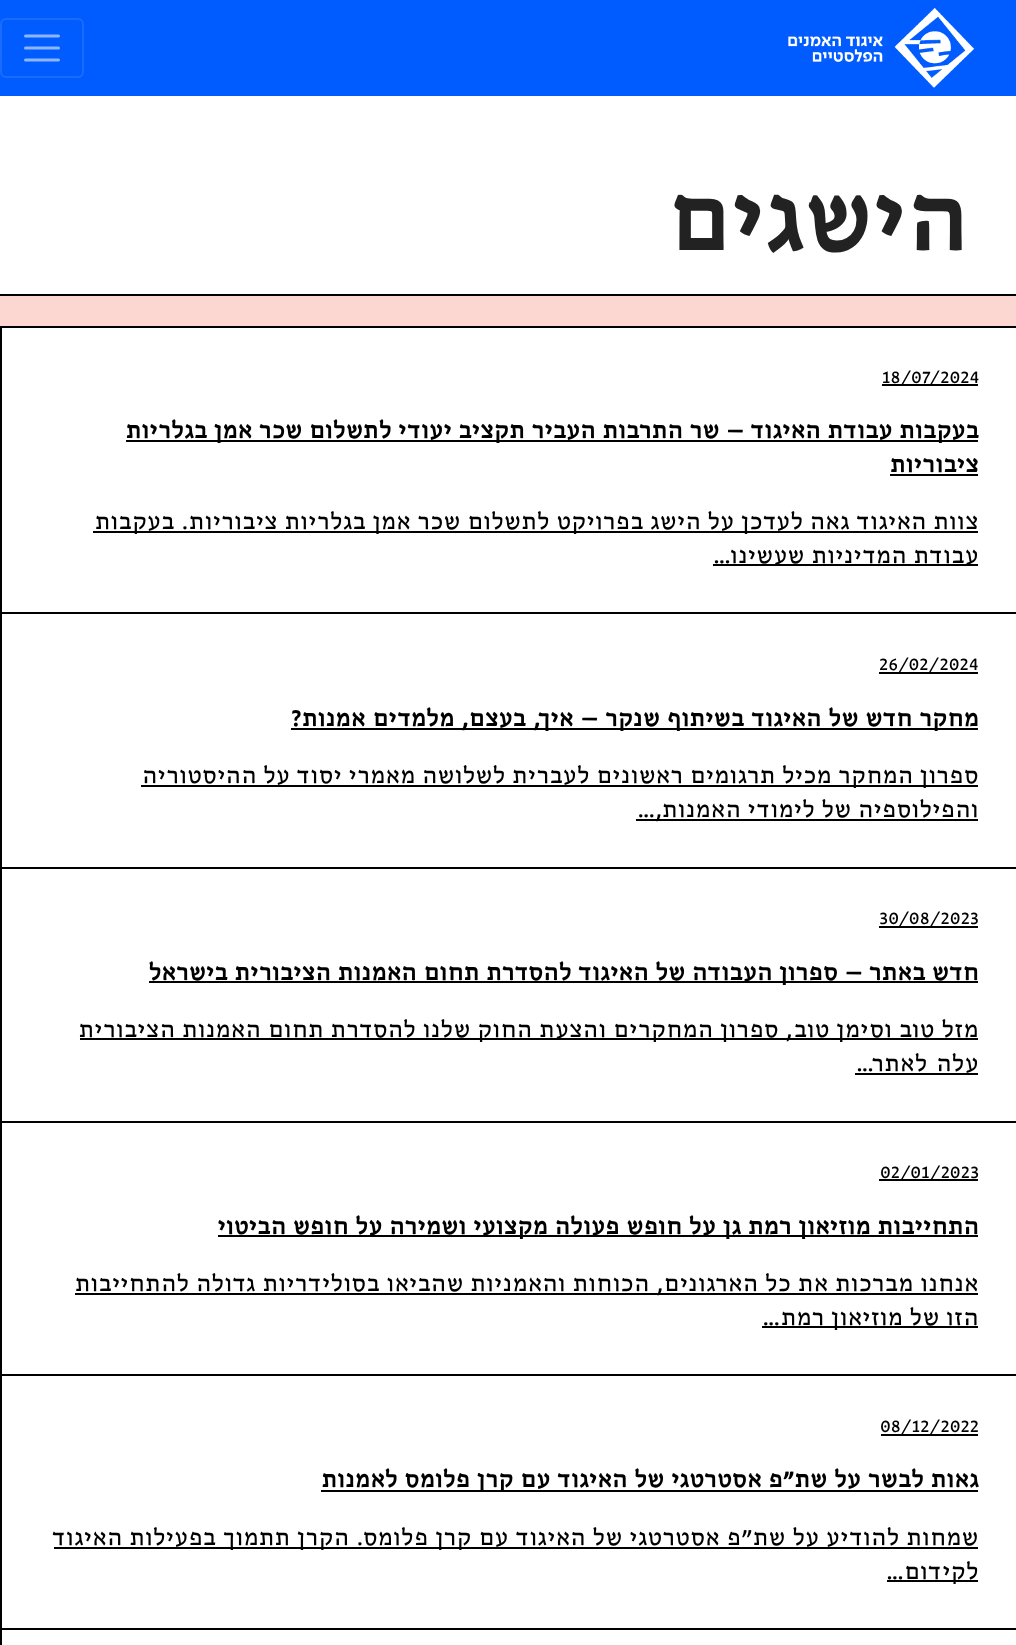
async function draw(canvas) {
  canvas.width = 1016
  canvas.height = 1645
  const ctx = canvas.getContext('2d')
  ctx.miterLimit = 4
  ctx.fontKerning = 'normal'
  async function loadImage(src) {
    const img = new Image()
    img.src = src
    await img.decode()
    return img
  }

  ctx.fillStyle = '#fff'
  ctx.fillRect(0, 0, 1016, 1645)
  ctx.fillStyle = '#005cff'
  ctx.fillRect(0, 0, 1016, 96)
  ctx.drawImage(await loadImage('image0.png'), 788, 8, 187, 80)
  ctx.beginPath()
  ctx.roundRect(1, 19, 82, 58, 5)
  ctx.strokeStyle = '#1a6cff'
  ctx.lineWidth = 2
  ctx.stroke()
  ctx.beginPath()
  ctx.moveTo(25.5, 36)
  ctx.lineTo(58.5, 36)
  ctx.moveTo(25.5, 48)
  ctx.lineTo(58.5, 48)
  ctx.moveTo(25.5, 60)
  ctx.lineTo(58.5, 60)
  ctx.strokeStyle = '#8cb6ff'
  ctx.lineWidth = 3
  ctx.lineCap = 'round'
  ctx.stroke()
  ctx.direction = 'rtl'
  ctx.font = 'bold 96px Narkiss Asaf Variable'
  ctx.fillStyle = '#222'
  ctx.fillText('הישגים', 969, 250)
  ctx.fillStyle = '#fcd6d1'
  ctx.fillRect(0, 296, 1016, 30)
  ctx.fillStyle = '#000'
  ctx.fillRect(0, 294, 1016, 2)
  ctx.fillRect(0, 612, 1016, 2)
  ctx.fillRect(0, 327, 2, 287)
  ctx.fillRect(0, 326, 1016, 2)
  ctx.fillRect(882, 384, 96, 2)
  ctx.direction = 'ltr'
  ctx.font = '19.25px Narkiss Asaf Variable'
  ctx.fillText('18/07/2024', 882, 383)
  ctx.fillRect(126, 440, 852, 2)
  ctx.wordSpacing = '-0.1px'
  ctx.direction = 'rtl'
  ctx.font = 'bold 24px Narkiss Asaf Variable'
  ctx.fillText('בעקבות עבודת האיגוד – שר התרבות העביר תקציב יעודי לתשלום שכר אמן בגלריות', 979, 438)
  ctx.wordSpacing = '0px'
  ctx.fillText('ציבוריות', 979, 472)
  ctx.fillRect(890, 474, 88, 2)
  ctx.fillRect(93, 531, 885, 2)
  ctx.wordSpacing = '-0.25px'
  ctx.font = '24px Narkiss Asaf Variable'
  ctx.fillText('צוות האיגוד גאה לעדכן על הישג בפרויקט לתשלום שכר אמן בגלריות ציבוריות. בעקבות', 979, 529)
  ctx.fillRect(713, 564, 265, 2)
  ctx.wordSpacing = '0px'
  ctx.fillText('עבודת המדיניות שעשינו…', 979, 563)
  ctx.fillRect(0, 867, 1016, 2)
  ctx.fillRect(0, 614, 2, 255)
  ctx.direction = 'ltr'
  ctx.font = '19.25px Narkiss Asaf Variable'
  ctx.fillText('26/02/2024', 879, 670)
  ctx.fillRect(879, 672, 99, 2)
  ctx.fillRect(291, 728, 687, 2)
  ctx.wordSpacing = '0.25px'
  ctx.direction = 'rtl'
  ctx.font = 'bold 24px Narkiss Asaf Variable'
  ctx.fillText('מחקר חדש של האיגוד בשיתוף שנקר – איך, בעצם, מלמדים אמנות?', 979, 726)
  ctx.fillRect(141, 785, 837, 2)
  ctx.wordSpacing = '-0.25px'
  ctx.font = '24px Narkiss Asaf Variable'
  ctx.fillText('ספרון המחקר מכיל תרגומים ראשונים לעברית לשלושה מאמרי יסוד על ההיסטוריה', 979, 783)
  ctx.fillRect(636, 819, 342, 2)
  ctx.fillText('והפילוספיה של לימודי האמנות,…', 979, 817)
  ctx.fillRect(0, 1121, 1016, 2)
  ctx.fillRect(0, 869, 2, 253)
  ctx.wordSpacing = '0px'
  ctx.direction = 'ltr'
  ctx.font = '19.25px Narkiss Asaf Variable'
  ctx.fillText('30/08/2023', 879, 924)
  ctx.fillRect(879, 926, 99, 2)
  ctx.fillRect(149, 981, 829, 2)
  ctx.wordSpacing = '-0.1px'
  ctx.direction = 'rtl'
  ctx.font = 'bold 24px Narkiss Asaf Variable'
  ctx.fillText('חדש באתר – ספרון העבודה של האיגוד להסדרת תחום האמנות הציבורית בישראל', 979, 980)
  ctx.fillRect(80, 1038, 898, 2)
  ctx.wordSpacing = '0px'
  ctx.font = '24px Narkiss Asaf Variable'
  ctx.fillText('מזל טוב וסימן טוב, ספרון המחקרים והצעת החוק שלנו להסדרת תחום האמנות הציבורית', 979, 1037)
  ctx.wordSpacing = '2px'
  ctx.fillText('עלה לאתר…', 979, 1071)
  ctx.fillRect(855, 1073, 123, 2)
  ctx.fillRect(0, 1374, 1016, 2)
  ctx.fillRect(0, 1122, 2, 254)
  ctx.fillRect(879, 1179, 99, 2)
  ctx.wordSpacing = '0px'
  ctx.direction = 'ltr'
  ctx.font = '19.25px Narkiss Asaf Variable'
  ctx.fillText('02/01/2023', 880, 1178)
  ctx.fillRect(218, 1235, 760, 2)
  ctx.direction = 'rtl'
  ctx.font = 'bold 24px Narkiss Asaf Variable'
  ctx.fillText('התחייבות מוזיאון רמת גן על חופש פעולה מקצועי ושמירה על חופש הביטוי', 979, 1234)
  ctx.fillRect(75, 1293, 903, 2)
  ctx.font = '24px Narkiss Asaf Variable'
  ctx.fillText('אנחנו מברכות את כל הארגונים, הכוחות והאמניות שהביאו בסולידריות גדולה להתחייבות', 979, 1291)
  ctx.fillRect(762, 1326, 216, 2)
  ctx.wordSpacing = '-0.25px'
  ctx.fillText('הזו של מוזיאון רמת…', 979, 1325)
  ctx.fillRect(0, 1628, 1016, 2)
  ctx.fillRect(0, 1376, 2, 269)
  ctx.wordSpacing = '0px'
  ctx.direction = 'ltr'
  ctx.font = '19.25px Narkiss Asaf Variable'
  ctx.fillText('08/12/2022', 880, 1432)
  ctx.fillRect(881, 1434, 97, 2)
  ctx.fillRect(321, 1490, 657, 2)
  ctx.direction = 'rtl'
  ctx.font = 'bold 24px Narkiss Asaf Variable'
  ctx.fillText('גאות לבשר על שת״פ אסטרטגי של האיגוד עם קרן פלומס לאמנות', 979, 1487)
  ctx.fillRect(54, 1547, 924, 2)
  ctx.font = '24px Narkiss Asaf Variable'
  ctx.fillText('שמחות להודיע על שת״פ אסטרטגי של האיגוד עם קרן פלומס. הקרן תתמוך בפעילות האיגוד', 979, 1545)
  ctx.fillRect(887, 1580, 91, 2)
  ctx.fillText('לקידום…', 979, 1579)
}

draw(document.querySelector('canvas'))
